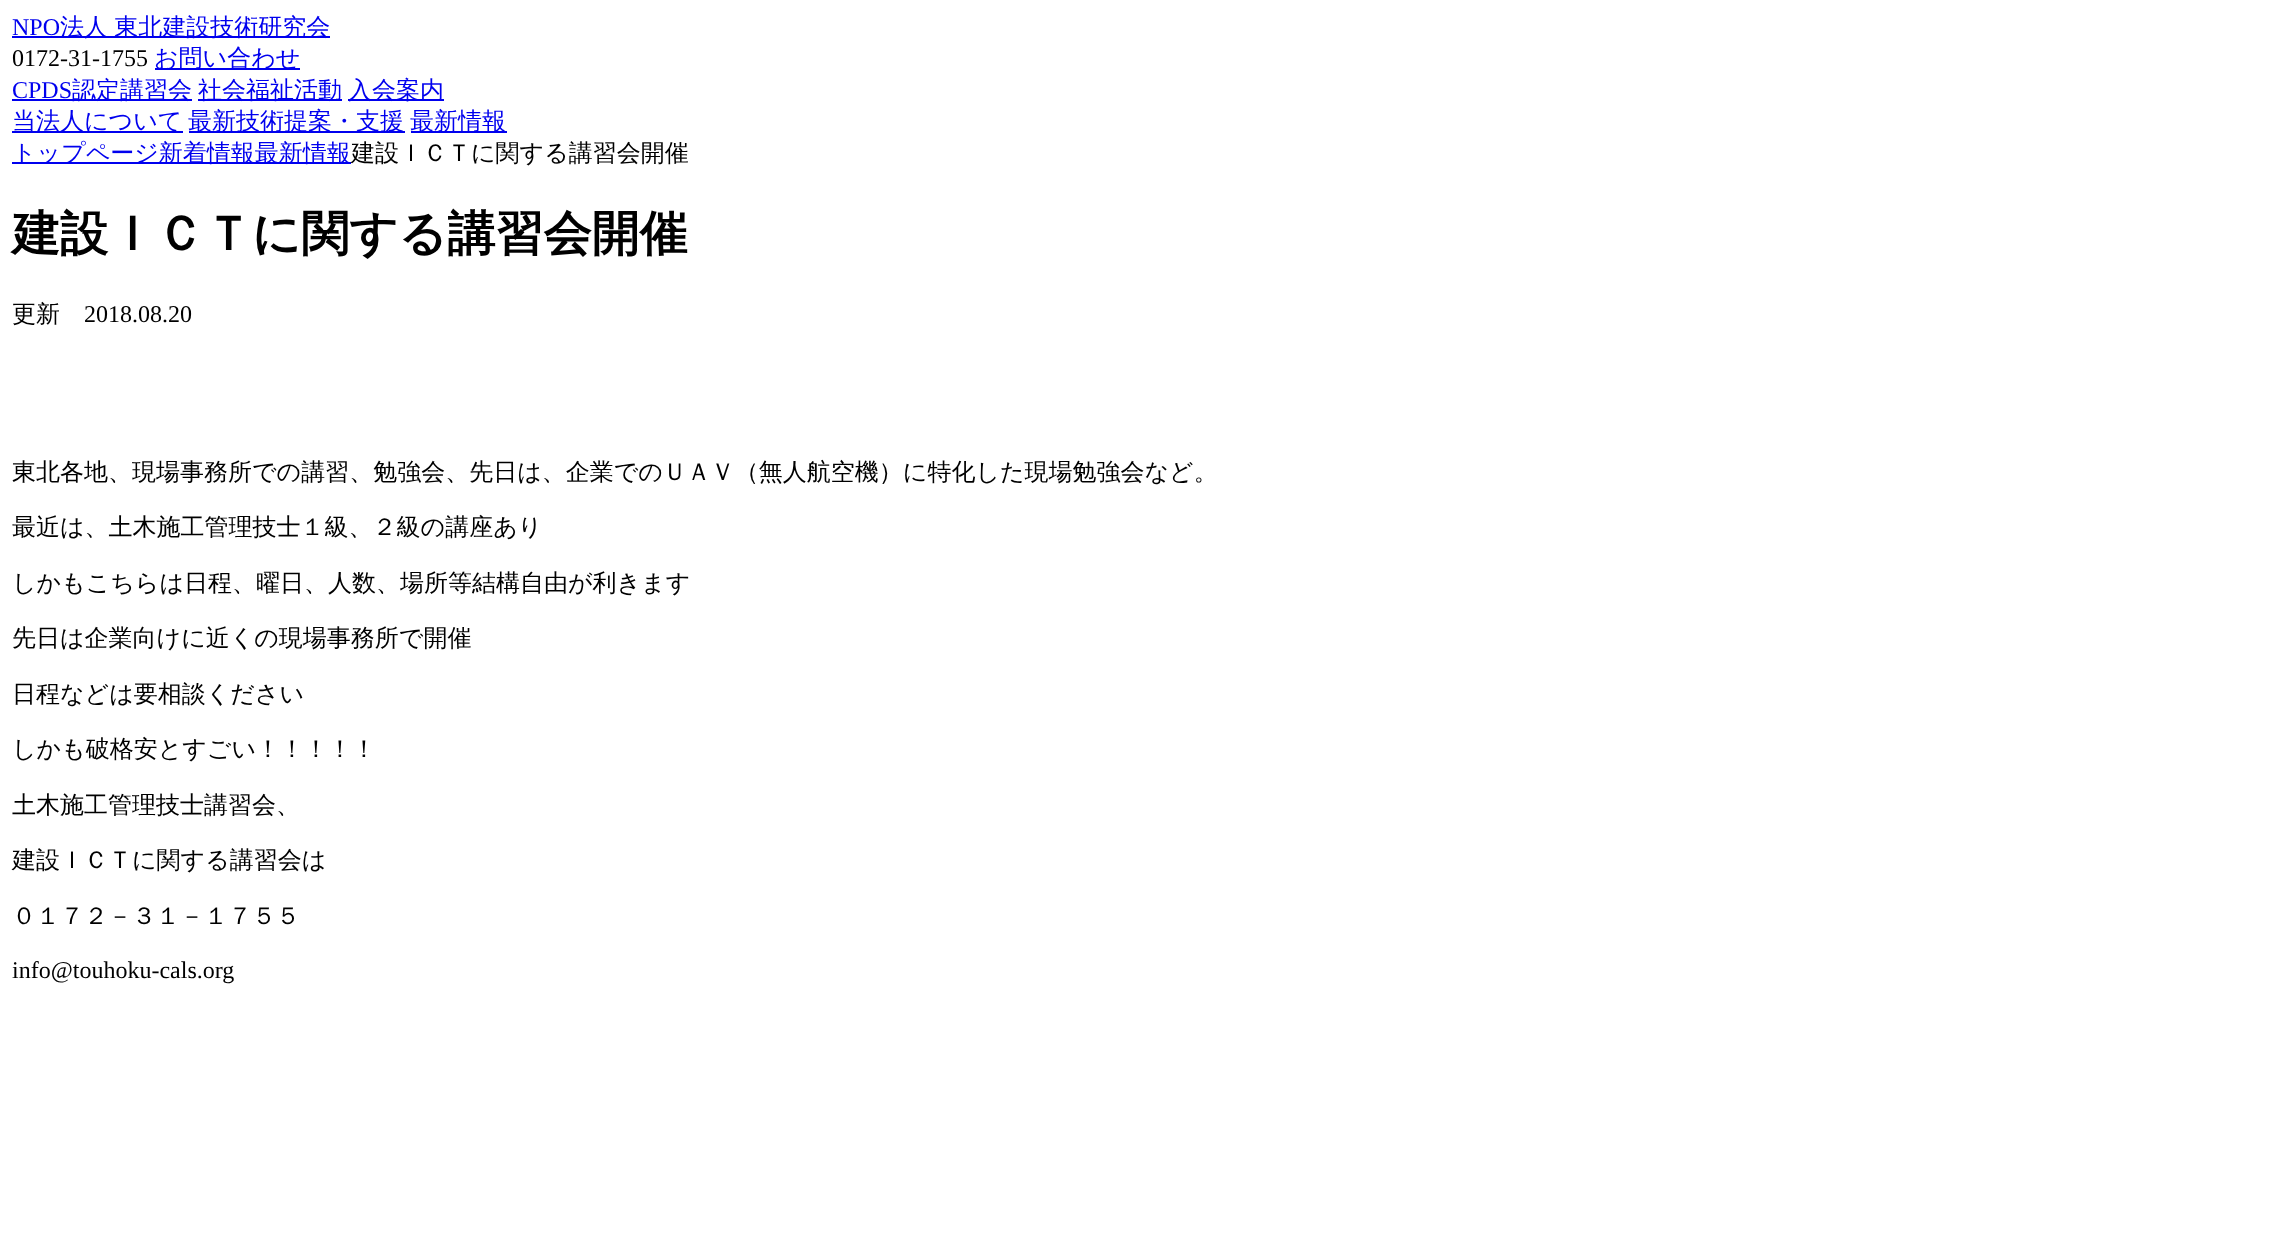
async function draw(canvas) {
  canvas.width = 2283
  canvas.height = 1241
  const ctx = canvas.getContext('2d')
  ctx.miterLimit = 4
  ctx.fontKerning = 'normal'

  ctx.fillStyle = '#fff'
  ctx.fillRect(0, 0, 2283, 1241)
  ctx.font = '24px Liberation Serif'
  ctx.fillStyle = '#00e'
  ctx.fillText('NPO', 12, 35)
  ctx.fillRect(12, 36, 318, 2)
  ctx.wordSpacing = '-1px'
  ctx.font = '500 24px WenQuanYi Zen Hei'
  ctx.fillText('法人 東北建設技術研究会', 60, 35)
  ctx.wordSpacing = '0px'
  ctx.font = '24px Liberation Serif'
  ctx.fillStyle = '#000'
  ctx.fillText('0172-31-1755', 12, 66)
  ctx.fillStyle = '#00e'
  ctx.fillRect(155, 68, 145, 2)
  ctx.font = '500 24px WenQuanYi Zen Hei'
  ctx.fillText('お問い合わせ', 154, 66)
  ctx.font = '24px Liberation Serif'
  ctx.fillText('CPDS', 12, 98)
  ctx.fillRect(12, 99, 180, 2)
  ctx.font = '500 24px WenQuanYi Zen Hei'
  ctx.fillText('認定講習会', 72, 98)
  ctx.fillRect(198, 99, 144, 2)
  ctx.fillText('社会福祉活動', 198, 98)
  ctx.fillRect(348, 99, 96, 2)
  ctx.fillText('入会案内', 348, 98)
  ctx.fillRect(12, 131, 171, 2)
  ctx.fillText('当法人について', 12, 129)
  ctx.fillRect(189, 131, 216, 2)
  ctx.fillText('最新技術提案・支援', 188, 129)
  ctx.fillRect(411, 131, 96, 2)
  ctx.fillText('最新情報', 410, 129)
  ctx.fillRect(12, 162, 339, 2)
  ctx.fillText('トップページ新着情報最新情報', 12, 161)
  ctx.fillStyle = '#000'
  ctx.fillText('建設ＩＣＴに関する講習会開催', 351, 161)
  ctx.font = 'bold 48px WenQuanYi Zen Hei'
  ctx.fillText('建設ＩＣＴに関する講習会開催', 12, 250)
  ctx.font = '500 24px WenQuanYi Zen Hei'
  ctx.fillText('更新', 12, 322)
  ctx.font = '24px Liberation Serif'
  ctx.fillText('2018.08.20', 84, 322)
  ctx.font = '500 24px WenQuanYi Zen Hei'
  ctx.fillText('東北各地、現場事務所での講習、勉強会、先日は、企業でのＵＡＶ（無人航空機）に特化した現場勉強会など。', 12, 480)
  ctx.fillText('最近は、土木施工管理技士１級、２級の講座あり', 12, 535)
  ctx.fillText('しかもこちらは日程、曜日、人数、場所等結構自由が利きます', 12, 591)
  ctx.fillText('先日は企業向けに近くの現場事務所で開催', 12, 646)
  ctx.fillText('日程などは要相談ください', 12, 702)
  ctx.fillText('しかも破格安とすごい！！！！！', 12, 757)
  ctx.fillText('土木施工管理技士講習会、', 12, 813)
  ctx.fillText('建設ＩＣＴに関する講習会は', 12, 868)
  ctx.fillText('０１７２－３１－１７５５', 12, 924)
  ctx.font = '24px Liberation Serif'
  ctx.fillText('info@touhoku-cals.org', 12, 978)
}

draw(document.querySelector('canvas'))
